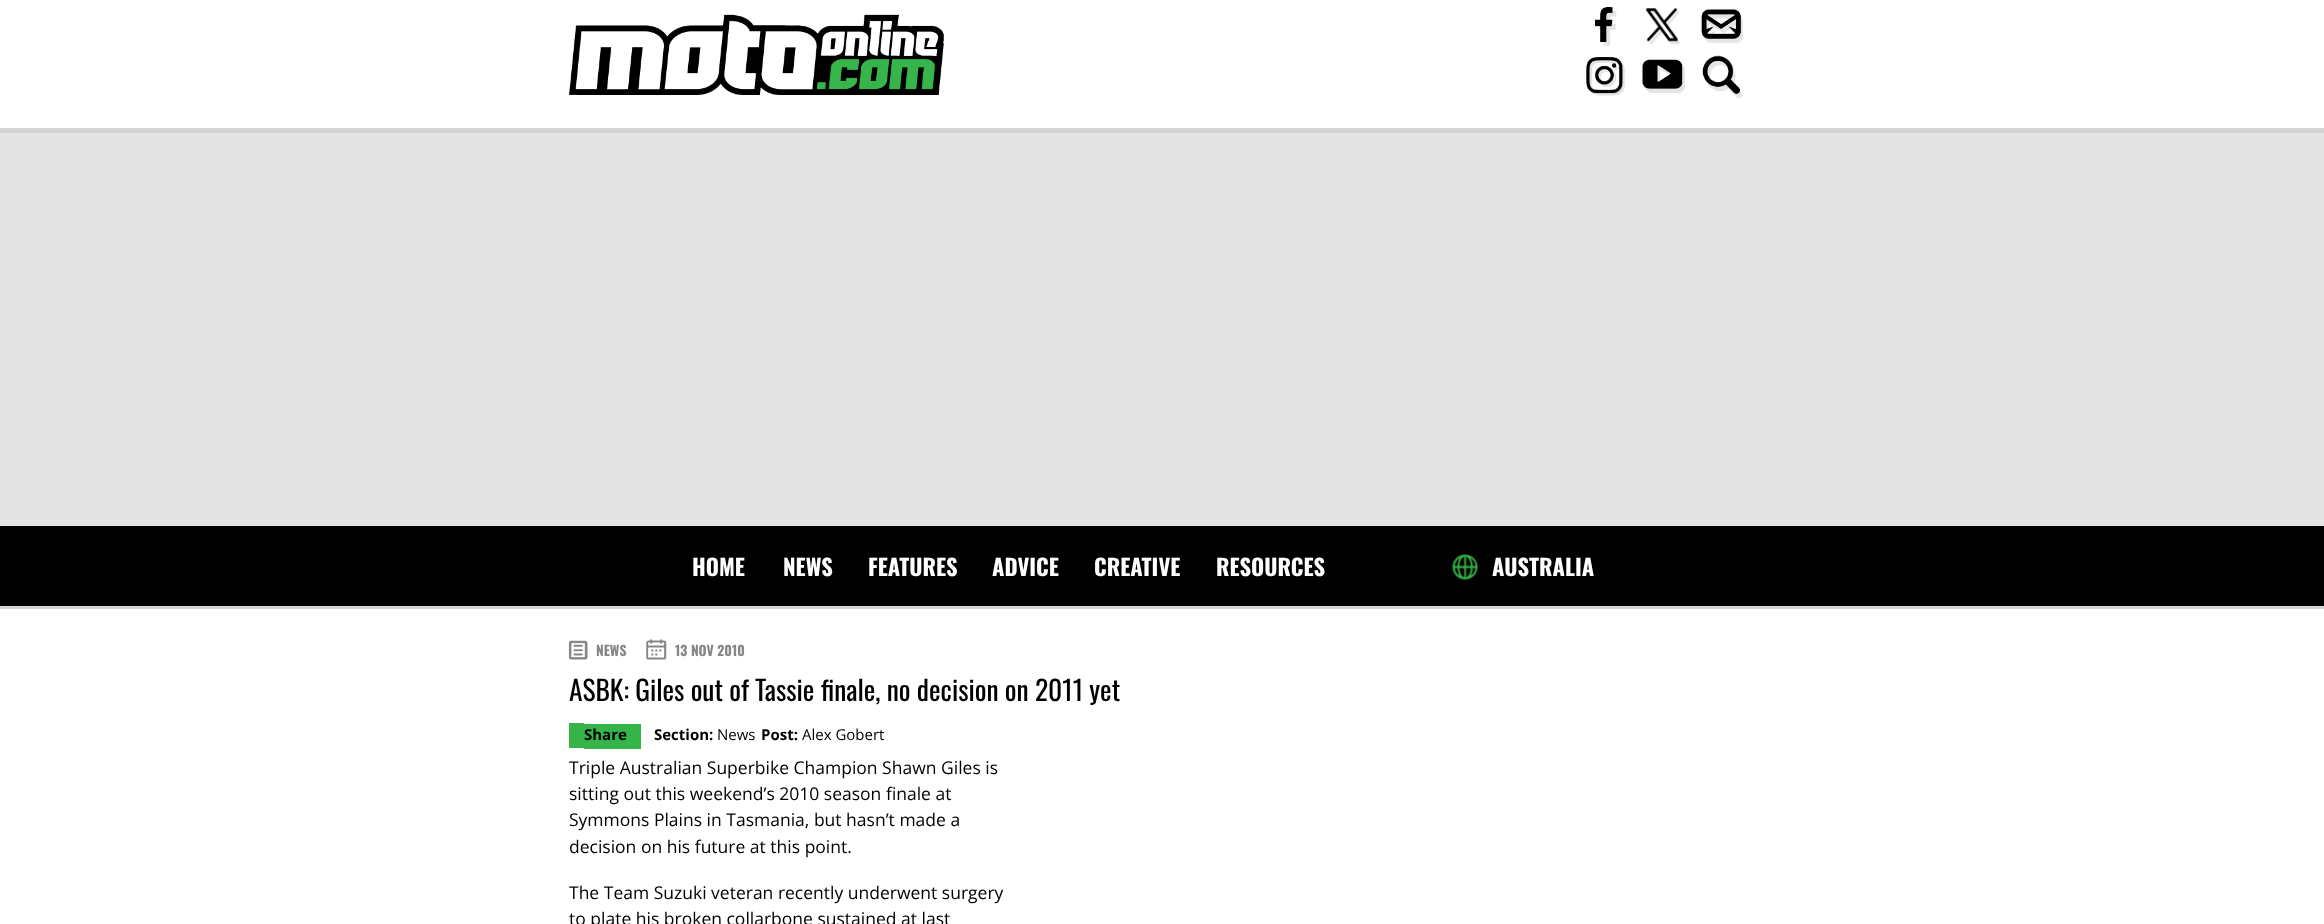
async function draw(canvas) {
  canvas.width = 2324
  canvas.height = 924
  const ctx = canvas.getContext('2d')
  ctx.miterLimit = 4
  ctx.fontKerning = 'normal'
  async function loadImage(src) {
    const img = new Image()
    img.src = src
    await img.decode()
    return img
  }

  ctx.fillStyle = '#fff'
  ctx.fillRect(0, 0, 2324, 924)
  ctx.fillStyle = '#d4d4d4'
  ctx.fillRect(0, 128, 2324, 5)
  ctx.drawImage(await loadImage('image0.png'), 568, 14, 376, 81)
  ctx.drawImage(await loadImage('image1.png'), 1595, 7, 22, 39)
  ctx.drawImage(await loadImage('image2.png'), 1646, 8, 34, 37)
  ctx.drawImage(await loadImage('image3.png'), 1701, 9, 42, 34)
  ctx.drawImage(await loadImage('image4.png'), 1586, 57, 39, 39)
  ctx.drawImage(await loadImage('image5.png'), 1642, 59, 43, 34)
  ctx.drawImage(await loadImage('image6.png'), 1702, 55, 41, 43)
  ctx.fillStyle = '#e4e4e4'
  ctx.fillRect(0, 133, 2324, 393)
  ctx.fillStyle = '#000'
  ctx.fillRect(0, 526, 2324, 80)
  ctx.fillStyle = '#d4d4d4'
  ctx.fillRect(0, 606, 2324, 3)
  ctx.font = 'bold 22.5px Oswald'
  ctx.fillStyle = '#fff'
  ctx.fillText('HOME', 692, 576)
  ctx.fillText('NEWS', 783, 576)
  ctx.fillText('FEATURES', 868, 576)
  ctx.fillText('ADVICE', 992, 576)
  ctx.fillText('CREATIVE', 1094, 576)
  ctx.fillText('RESOURCES', 1216, 576)
  ctx.drawImage(await loadImage('image7.png'), 1452, 554, 26, 26)
  ctx.fillText('AUSTRALIA', 1492, 576)
  ctx.drawImage(await loadImage('image8.png'), 568, 640, 20, 20)
  ctx.font = 'bold 13.75px Oswald'
  ctx.fillStyle = '#868686'
  ctx.fillText('NEWS', 596, 656)
  ctx.drawImage(await loadImage('image9.png'), 646, 639, 21, 21)
  ctx.fillText('13 NOV 2010', 675, 656)
  ctx.font = '27.5px Oswald'
  ctx.fillStyle = '#000'
  ctx.fillText('ASBK: Giles out of Tassie finale, no decision on 2011 yet', 569, 701)
  ctx.fillStyle = '#35b449'
  ctx.fillRect(584, 724, 57, 25)
  ctx.font = 'bold 15px Open Sans'
  ctx.fillStyle = '#000'
  ctx.fillText('Share', 584, 740)
  ctx.fillStyle = '#35b449'
  ctx.fillRect(569, 723, 15, 25)
  ctx.fillStyle = '#000'
  ctx.fillText('Section:', 654, 740)
  ctx.font = '15px Open Sans'
  ctx.fillText('News', 717, 740)
  ctx.font = 'bold 15px Open Sans'
  ctx.fillText('Post:', 761, 740)
  ctx.font = '15px Open Sans'
  ctx.fillText('Alex Gobert', 802, 740)
  ctx.font = '17.5px Open Sans'
  ctx.fillText('Triple Australian Superbike Champion Shawn Giles is', 569, 774)
  ctx.fillText('sitting out this weekend’s 2010 season finale at', 569, 800)
  ctx.fillText('Symmons Plains in Tasmania, but hasn’t made a', 569, 826)
  ctx.fillText('decision on his future at this point.', 569, 853)
  ctx.fillText('The Team Suzuki veteran recently underwent surgery', 569, 899)
  ctx.fillText('to plate his broken collarbone sustained at last', 569, 925)
}

draw(document.querySelector('canvas'))
